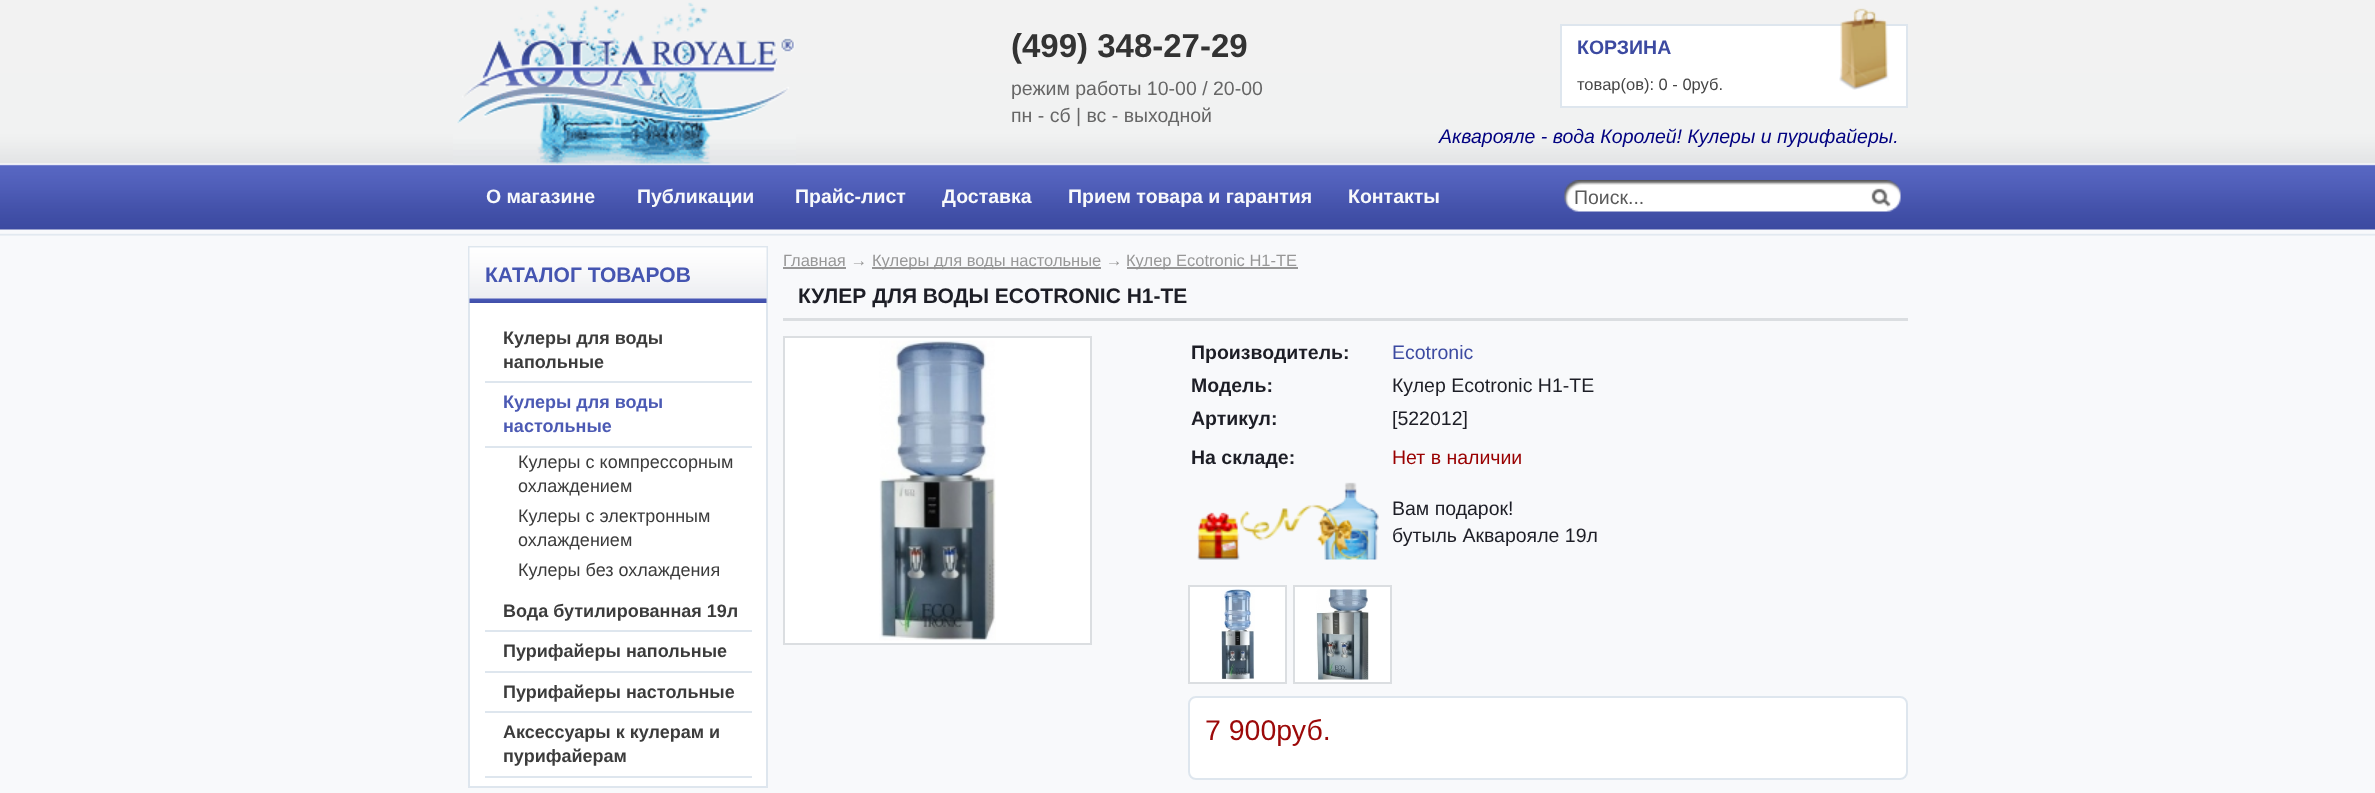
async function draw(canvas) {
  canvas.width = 2375
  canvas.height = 793
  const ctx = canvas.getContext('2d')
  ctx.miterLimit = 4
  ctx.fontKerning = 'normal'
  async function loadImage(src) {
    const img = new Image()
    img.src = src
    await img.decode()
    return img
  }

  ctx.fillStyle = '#f8f9fb'
  ctx.fillRect(0, 0, 2375, 793)
  ctx.drawImage(await loadImage('image0.png'), 0, 0, 2375, 236)
  ctx.drawImage(await loadImage('image1.png'), 453, 2, 343, 162)
  ctx.font = 'bold 33px Liberation Sans'
  ctx.fillStyle = '#333'
  ctx.fillText('(499) 348-27-29', 1011, 57)
  ctx.font = '19.5px Liberation Sans'
  ctx.fillStyle = '#666'
  ctx.fillText('режим работы 10-00 / 20-00', 1011, 95)
  ctx.fillText('пн - сб | вс - выходной', 1011, 122)
  ctx.fillStyle = '#fff'
  ctx.beginPath()
  ctx.rect(1561, 25, 346, 82)
  ctx.fill()
  ctx.strokeStyle = '#dee6ee'
  ctx.lineWidth = 2
  ctx.stroke()
  ctx.font = 'bold 19.5px Liberation Sans'
  ctx.fillStyle = '#3c4aa1'
  ctx.fillText('КОРЗИНА', 1577, 54)
  ctx.drawImage(await loadImage('image2.png'), 1839, 8, 50, 82)
  ctx.font = '16.5px Liberation Sans'
  ctx.fillStyle = '#464646'
  ctx.fillText('товар(ов): 0 - 0руб.', 1577, 90)
  ctx.font = 'italic 19.5px Liberation Sans'
  ctx.fillStyle = '#000080'
  ctx.fillText('Акварояле - вода Королей! Кулеры и пурифайеры.', 1439, 143)
  ctx.font = 'bold 19.5px Liberation Sans'
  ctx.fillStyle = '#f8f9fb'
  ctx.fillText('О магазине', 486, 203)
  ctx.fillText('Публикации', 637, 203)
  ctx.fillText('Прайс-лист', 795, 203)
  ctx.fillText('Доставка', 942, 203)
  ctx.fillText('Прием товара и гарантия', 1068, 203)
  ctx.fillText('Контакты', 1348, 203)
  ctx.drawImage(await loadImage('image3.png'), 1564, 180, 337, 32)
  ctx.font = '19.5px Liberation Sans'
  ctx.fillStyle = '#5a5a5a'
  ctx.fillText('Поиск...', 1574, 204)
  ctx.fillStyle = '#fff'
  ctx.fillRect(470, 303, 296, 483)
  ctx.strokeRect(469, 247, 298, 540)
  ctx.drawImage(await loadImage('image4.png'), 469, 247, 298, 56)
  ctx.font = 'bold 21px Liberation Sans'
  ctx.fillStyle = '#4555b1'
  ctx.fillText('КАТАЛОГ ТОВАРОВ', 485, 282)
  ctx.fillStyle = '#dee6ee'
  ctx.fillRect(485, 381, 267, 2)
  ctx.font = 'bold 18px Liberation Sans'
  ctx.fillStyle = '#3c3c3c'
  ctx.fillText('Кулеры для воды', 503, 344)
  ctx.fillText('напольные', 503, 368)
  ctx.fillStyle = '#dee6ee'
  ctx.fillRect(485, 446, 267, 2)
  ctx.fillStyle = '#4c5ab4'
  ctx.fillText('Кулеры для воды', 503, 408)
  ctx.fillText('настольные', 503, 432)
  ctx.font = '18px Liberation Sans'
  ctx.fillStyle = '#3c3c3c'
  ctx.fillText('Кулеры с компрессорным', 518, 468)
  ctx.fillText('охлаждением', 518, 492)
  ctx.fillText('Кулеры с электронным', 518, 522)
  ctx.fillText('охлаждением', 518, 546)
  ctx.fillText('Кулеры без охлаждения', 518, 576)
  ctx.fillStyle = '#dee6ee'
  ctx.fillRect(485, 630, 267, 2)
  ctx.font = 'bold 18px Liberation Sans'
  ctx.fillStyle = '#3c3c3c'
  ctx.fillText('Вода бутилированная 19л', 503, 617)
  ctx.fillStyle = '#dee6ee'
  ctx.fillRect(485, 671, 267, 2)
  ctx.fillStyle = '#3c3c3c'
  ctx.fillText('Пурифайеры напольные', 503, 657)
  ctx.fillStyle = '#dee6ee'
  ctx.fillRect(485, 711, 267, 2)
  ctx.fillStyle = '#3c3c3c'
  ctx.fillText('Пурифайеры настольные', 503, 698)
  ctx.fillStyle = '#dee6ee'
  ctx.fillRect(485, 776, 267, 2)
  ctx.fillStyle = '#3c3c3c'
  ctx.fillText('Аксессуары к кулерам и', 503, 738)
  ctx.fillText('пурифайерам', 503, 762)
  ctx.font = '16.5px Liberation Sans'
  ctx.fillStyle = '#979797'
  ctx.fillText('Главная →', 783, 266)
  ctx.fillRect(783, 267, 63, 2)
  ctx.fillRect(872, 267, 229, 2)
  ctx.fillText('Кулеры для воды настольные →', 872, 266)
  ctx.fillRect(1127, 267, 171, 2)
  ctx.fillText('Кулер Ecotronic H1-TE', 1126, 266)
  ctx.fillStyle = '#dbdee1'
  ctx.fillRect(783, 318, 1125, 3)
  ctx.font = 'bold 21px Liberation Sans'
  ctx.fillStyle = '#1d1e26'
  ctx.fillText('КУЛЕР ДЛЯ ВОДЫ ECOTRONIC H1-TE', 798, 303)
  ctx.fillStyle = '#fff'
  ctx.beginPath()
  ctx.rect(784, 337, 307, 307)
  ctx.fill()
  ctx.strokeStyle = '#dbdee1'
  ctx.stroke()
  ctx.drawImage(await loadImage('image5.png'), 879, 340, 117, 301)
  ctx.font = 'bold 19.5px Liberation Sans'
  ctx.fillStyle = '#1d1e26'
  ctx.fillText('Производитель:', 1191, 359)
  ctx.font = '19.5px Liberation Sans'
  ctx.fillStyle = '#3c4aa1'
  ctx.fillText('Ecotronic', 1392, 359)
  ctx.font = 'bold 19.5px Liberation Sans'
  ctx.fillStyle = '#1d1e26'
  ctx.fillText('Модель:', 1191, 392)
  ctx.font = '19.5px Liberation Sans'
  ctx.fillText('Кулер Ecotronic H1-TE', 1392, 392)
  ctx.font = 'bold 19.5px Liberation Sans'
  ctx.fillText('Артикул:', 1191, 425)
  ctx.font = '19.5px Liberation Sans'
  ctx.fillText('[522012]', 1392, 425)
  ctx.font = 'bold 19.5px Liberation Sans'
  ctx.fillText('На складе:', 1191, 464)
  ctx.font = '19.5px Liberation Sans'
  ctx.fillStyle = '#900'
  ctx.fillText('Нет в наличии', 1392, 464)
  ctx.drawImage(await loadImage('image6.png'), 1197, 482, 182, 78)
  ctx.fillStyle = '#1d1e26'
  ctx.fillText('Вам подарок!', 1392, 515)
  ctx.fillText('бутыль Акварояле 19л', 1392, 542)
  ctx.fillStyle = '#fff'
  ctx.beginPath()
  ctx.rect(1189, 586, 97, 97)
  ctx.fill()
  ctx.stroke()
  ctx.beginPath()
  ctx.rect(1294, 586, 97, 97)
  ctx.fill()
  ctx.stroke()
  ctx.drawImage(await loadImage('image7.png'), 1221, 589, 34, 91)
  ctx.drawImage(await loadImage('image8.png'), 1316, 589, 53, 91)
  ctx.beginPath()
  ctx.roundRect(1189, 697, 718, 82, 7)
  ctx.fill()
  ctx.strokeStyle = '#dee6ee'
  ctx.stroke()
  ctx.font = '28.5px Liberation Sans'
  ctx.fillStyle = '#9c0909'
  ctx.fillText('7 900руб.', 1205, 740)
}

draw(document.querySelector('canvas'))
